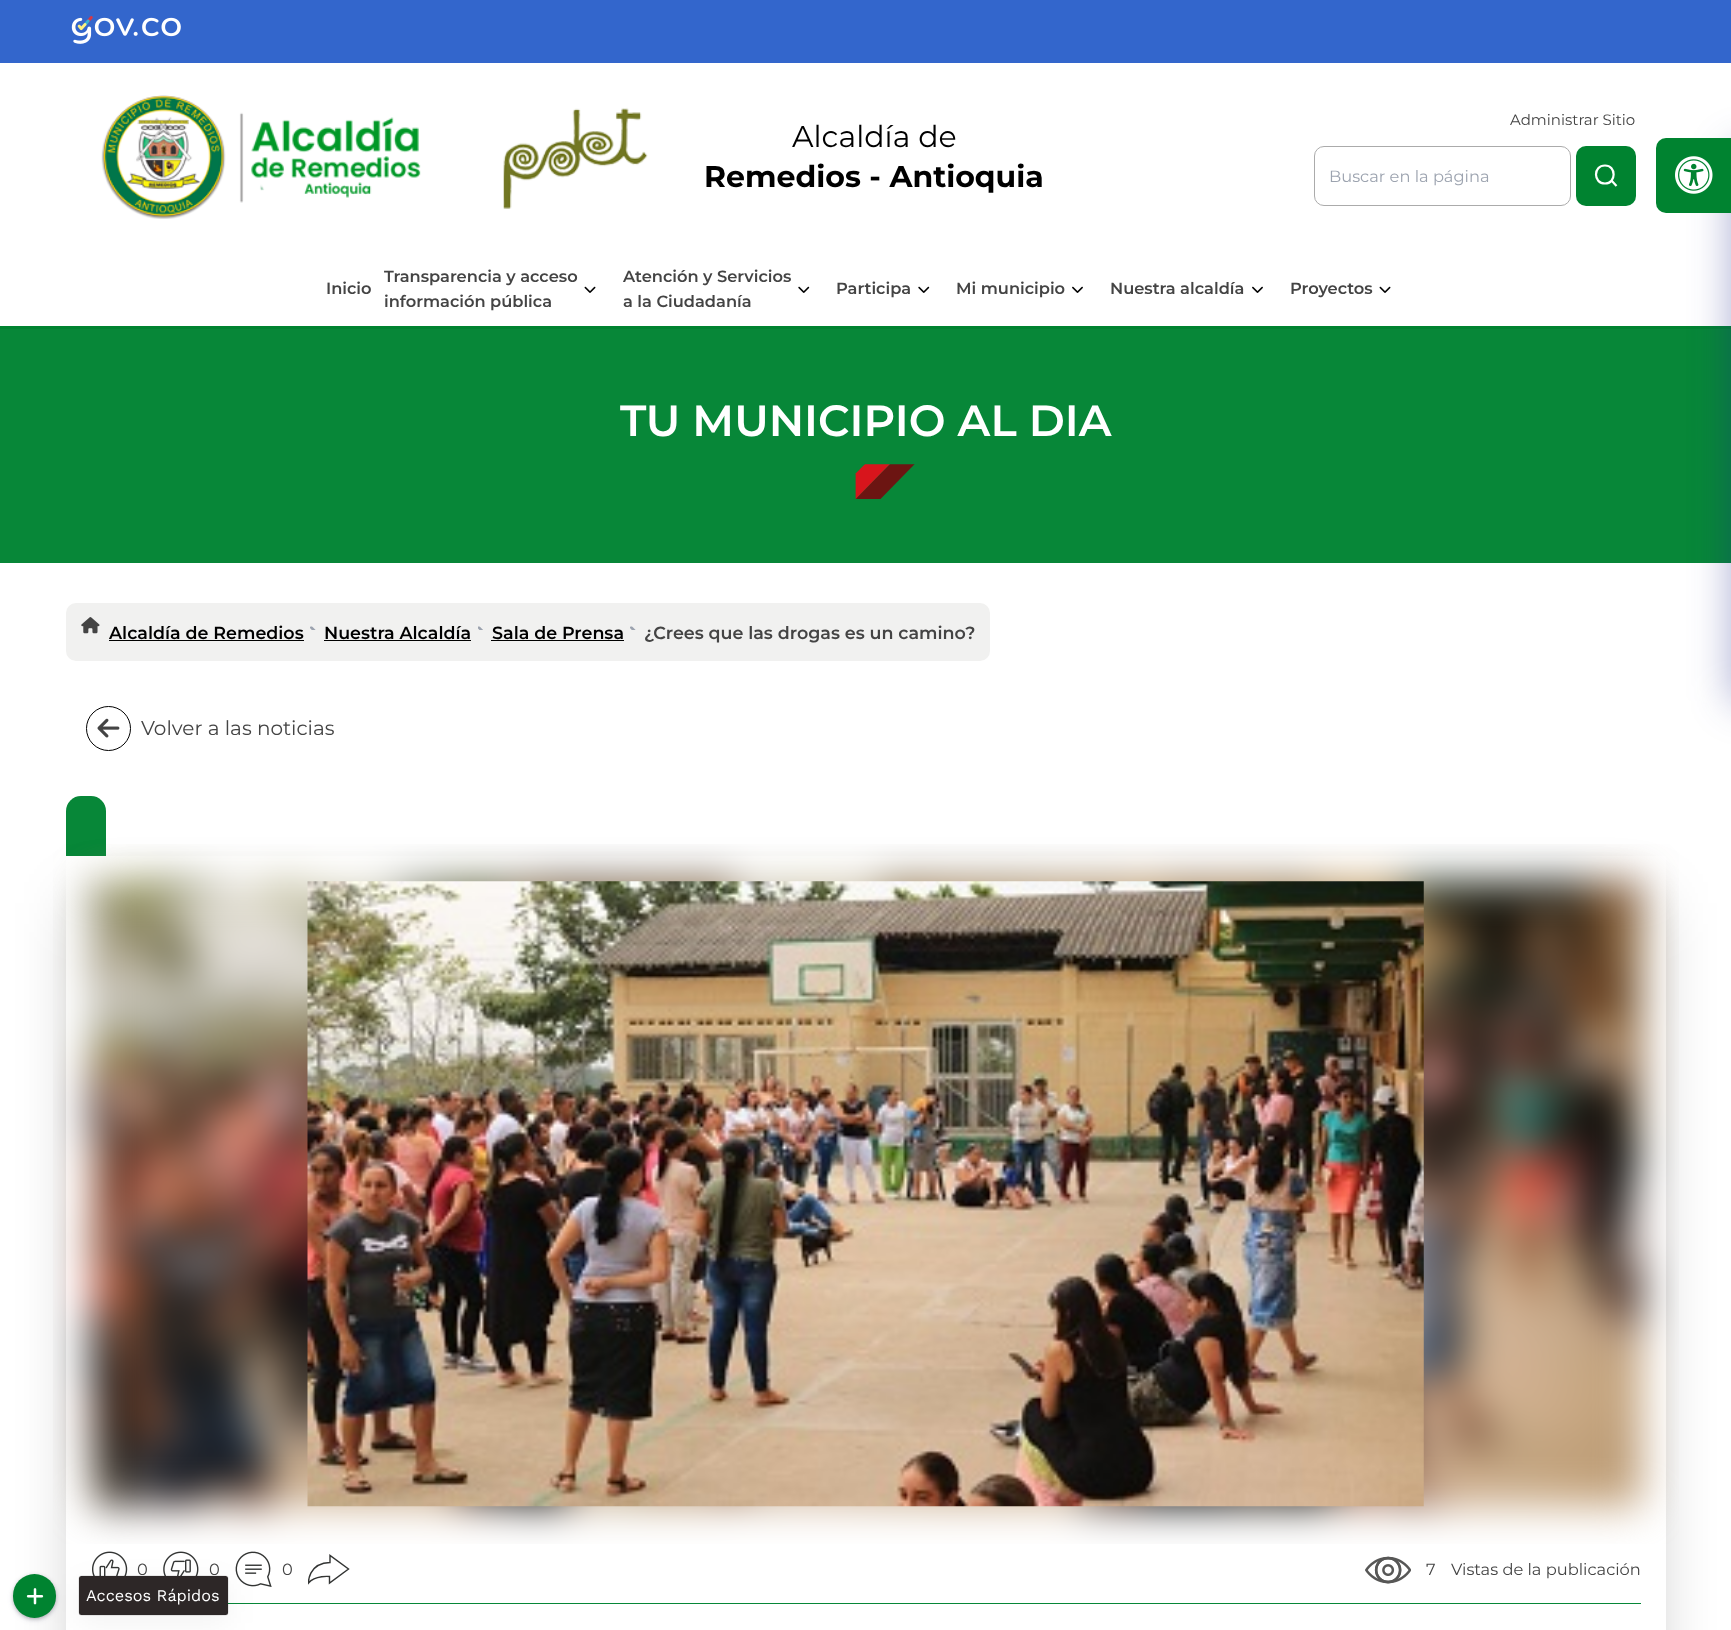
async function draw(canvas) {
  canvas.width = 1731
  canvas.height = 1630
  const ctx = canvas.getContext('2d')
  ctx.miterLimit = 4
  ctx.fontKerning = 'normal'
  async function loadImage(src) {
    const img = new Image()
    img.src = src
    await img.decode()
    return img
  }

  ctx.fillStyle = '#fff'
  ctx.fillRect(0, 0, 1731, 1630)
  ctx.fillStyle = '#36c'
  ctx.fillRect(0, 0, 1731, 63)
  ctx.drawImage(await loadImage('image0.png'), 71, 16, 110, 28)
  ctx.drawImage(await loadImage('image1.png'), 101, 95, 547, 124)
  ctx.font = '30px Montserrat'
  ctx.fillStyle = '#000'
  ctx.fillText('Alcaldía de', 792, 147)
  ctx.font = 'bold 30px Montserrat'
  ctx.fillText('Remedios - Antioquia', 704, 187)
  ctx.font = '15px Montserrat'
  ctx.fillStyle = '#444'
  ctx.fillText('Administrar Sitio', 1510, 125)
  ctx.beginPath()
  ctx.roundRect(1314.5, 146.5, 256, 59, 9.5)
  ctx.strokeStyle = '#ababab'
  ctx.stroke()
  ctx.font = '16.25px Montserrat'
  ctx.fillStyle = '#9ca3af'
  ctx.fillText('Buscar en la página', 1329, 182)
  ctx.fillStyle = '#008330'
  ctx.beginPath()
  ctx.roundRect(1576, 146, 60, 60, 10)
  ctx.fill()
  ctx.beginPath()
  ctx.moveTo(1605, 183.5)
  ctx.bezierCurveTo(1616.5, 183.5, 1616.5, 165.5, 1605, 165.5)
  ctx.bezierCurveTo(1593, 165.5, 1593, 183.5, 1605, 183.5)
  ctx.closePath()
  ctx.moveTo(1616.5, 186)
  ctx.lineTo(1611.5, 180.5)
  ctx.strokeStyle = '#fff'
  ctx.lineWidth = 2.2
  ctx.stroke()
  ctx.fillRect(0, 326, 1731, 3)
  ctx.font = '600 16.25px Montserrat'
  ctx.fillStyle = '#444'
  ctx.fillText('Inicio', 326, 294)
  ctx.fillText('Transparencia y acceso', 384, 282)
  ctx.fillText('información pública', 384, 307)
  ctx.drawImage(await loadImage('image2.png'), 584, 286, 12, 7)
  ctx.fillText('Atención y Servicios', 623, 282)
  ctx.fillText('a la Ciudadanía', 623, 307)
  ctx.drawImage(await loadImage('image3.png'), 798, 286, 12, 7)
  ctx.fillText('Participa', 836, 294)
  ctx.drawImage(await loadImage('image3.png'), 918, 286, 12, 7)
  ctx.fillText('Mi municipio', 956, 294)
  ctx.drawImage(await loadImage('image4.png'), 1072, 286, 11, 7)
  ctx.fillText('Nuestra alcaldía', 1110, 294)
  ctx.drawImage(await loadImage('image4.png'), 1252, 286, 11, 7)
  ctx.fillText('Proyectos', 1290, 294)
  ctx.drawImage(await loadImage('image2.png'), 1379, 286, 12, 7)
  ctx.fillStyle = '#078738'
  ctx.fillRect(0, 329, 1731, 234)
  ctx.font = '600 43.75px Montserrat'
  ctx.fillStyle = '#fff'
  ctx.fillText('TU MUNICIPIO AL DIA', 620, 436)
  ctx.drawImage(await loadImage('image5.png'), 855, 464, 60, 35)
  ctx.fillStyle = '#f1f1f0'
  ctx.beginPath()
  ctx.roundRect(66, 603, 924, 58, 10)
  ctx.fill()
  ctx.drawImage(await loadImage('image6.png'), 81, 617, 19, 17)
  ctx.font = '600 17.5px Montserrat'
  ctx.fillStyle = '#000'
  ctx.fillText('Alcaldía de Remedios', 109, 639)
  ctx.fillRect(109, 640, 195, 1)
  ctx.drawImage(await loadImage('image7.png'), 310, 626, 6, 4)
  ctx.fillText('Nuestra Alcaldía', 324, 639)
  ctx.fillRect(324, 640, 147, 1)
  ctx.drawImage(await loadImage('image8.png'), 478, 626, 5, 4)
  ctx.fillText('Sala de Prensa', 492, 639)
  ctx.fillRect(491, 640, 133, 1)
  ctx.drawImage(await loadImage('image7.png'), 630, 626, 6, 4)
  ctx.fillStyle = '#444'
  ctx.fillText('¿Crees que las drogas es un camino?', 644, 639)
  ctx.beginPath()
  ctx.arc(108.5, 728.5, 22, 0, 2 * Math.PI)
  ctx.strokeStyle = '#000'
  ctx.lineWidth = 1
  ctx.stroke()
  ctx.drawImage(await loadImage('image9.png'), 97, 718, 23, 20)
  ctx.font = '20px Montserrat'
  ctx.fillText('Volver a las noticias', 141, 735)
  ctx.fillStyle = '#078738'
  ctx.beginPath()
  ctx.roundRect(66, 796, 40, 60, [15, 15, 0, 0])
  ctx.fill()
  ctx.save()
  ctx.beginPath()
  ctx.moveTo(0, 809)
  ctx.lineTo(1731, 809)
  ctx.lineTo(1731, 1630)
  ctx.lineTo(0, 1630)
  ctx.closePath()
  ctx.moveTo(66, 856)
  ctx.lineTo(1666, 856)
  ctx.lineTo(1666, 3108)
  ctx.lineTo(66, 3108)
  ctx.closePath()
  ctx.clip('evenodd')
  ctx.fillStyle = '#00000040'
  ctx.filter = 'blur(31px)'
  ctx.beginPath()
  ctx.rect(81, 903, 1570, 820)
  ctx.fill()
  ctx.filter = 'none'
  ctx.restore()
  ctx.drawImage(await loadImage('image10.png'), 53, 844, 1626, 700)
  ctx.drawImage(await loadImage('image11.png'), 307, 881, 1117, 626)
  ctx.fillRect(228, 1603, 1413, 1)
  ctx.drawImage(await loadImage('image12.png'), 92, 1551, 36, 25)
  ctx.font = '16.25px Montserrat'
  ctx.fillStyle = '#444'
  ctx.fillText('0', 137, 1575)
  ctx.drawImage(await loadImage('image13.png'), 163, 1551, 36, 25)
  ctx.fillText('0', 209, 1575)
  ctx.drawImage(await loadImage('image14.png'), 235, 1551, 37, 36)
  ctx.fillText('0', 282, 1575)
  ctx.save()
  ctx.beginPath()
  ctx.rect(308, 1554, 42, 31)
  ctx.clip()
  ctx.beginPath()
  ctx.moveTo(308.5, 1583)
  ctx.bezierCurveTo(308.5, 1583, 308, 1563, 330, 1562.5)
  ctx.lineTo(330, 1555.5)
  ctx.lineTo(348.5, 1569)
  ctx.lineTo(329.5, 1583)
  ctx.lineTo(329.5, 1576.5)
  ctx.bezierCurveTo(329.5, 1576.5, 315.5, 1575, 308.5, 1583)
  ctx.closePath()
  ctx.strokeStyle = '#333534'
  ctx.lineWidth = 1.4
  ctx.stroke()
  ctx.restore()
  ctx.drawImage(await loadImage('image15.png'), 1365, 1556, 46, 28)
  ctx.fillText('7', 1426, 1575)
  ctx.fillText('Vistas de la publicación', 1451, 1575)
  ctx.fillStyle = '#0000004d'
  ctx.filter = 'blur(2px)'
  ctx.beginPath()
  ctx.roundRect(14, 1576, 41, 42, 20.5)
  ctx.fill()
  ctx.filter = 'none'
  ctx.fillStyle = '#32325d40'
  ctx.filter = 'blur(3px)'
  ctx.beginPath()
  ctx.roundRect(14, 1578, 41, 41, 20.5)
  ctx.fill()
  ctx.filter = 'none'
  ctx.fillStyle = '#008330'
  ctx.beginPath()
  ctx.roundRect(13, 1574, 43, 44, 21.5)
  ctx.fill()
  ctx.drawImage(await loadImage('image16.png'), 26, 1588, 18, 17)
  ctx.beginPath()
  ctx.roundRect(78.5, 1575.5, 150, 40, 3.5)
  ctx.strokeStyle = '#00000014'
  ctx.stroke()
  ctx.fillStyle = '#0000000d'
  ctx.filter = 'blur(15px)'
  ctx.beginPath()
  ctx.roundRect(79, 1584, 149, 39, 2.5)
  ctx.fill()
  ctx.filter = 'none'
  ctx.fillStyle = '#2d2727'
  ctx.beginPath()
  ctx.roundRect(79, 1576, 149, 39, 2.5)
  ctx.fill()
  ctx.font = '16.25px Work Sans'
  ctx.fillStyle = '#fff'
  ctx.fillText('Accesos Rápidos', 86, 1601)
  ctx.fillStyle = '#1f26875e'
  ctx.filter = 'blur(20px)'
  ctx.beginPath()
  ctx.roundRect(1731, 148, 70, 555, 10)
  ctx.fill()
  ctx.filter = 'none'
  ctx.fillStyle = '#008330'
  ctx.beginPath()
  ctx.roundRect(1656, 138, 75, 75, [10, 0, 0, 10])
  ctx.fill()
  ctx.drawImage(await loadImage('image17.png'), 1675, 156, 38, 38)
}

draw(document.querySelector('canvas'))
